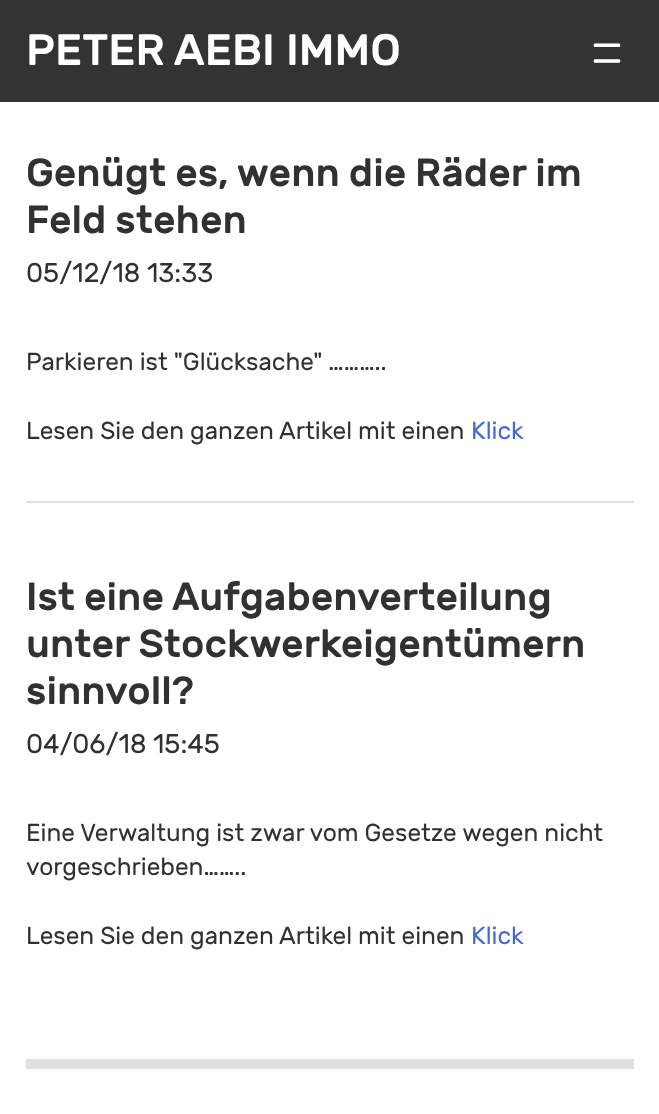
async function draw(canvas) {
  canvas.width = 659
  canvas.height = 1114
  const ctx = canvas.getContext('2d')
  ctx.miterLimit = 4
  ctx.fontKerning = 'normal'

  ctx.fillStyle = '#fff'
  ctx.fillRect(0, 0, 659, 1114)
  ctx.fillStyle = '#333'
  ctx.fillRect(0, 0, 659, 102)
  ctx.font = '500 44px Rubik'
  ctx.fillStyle = '#fff'
  ctx.fillText('PETER AEBI', 26, 65)
  ctx.fillText('IMMO', 286, 65)
  ctx.font = '300 63px Rubik'
  ctx.fillText('=', 589, 72)
  ctx.font = '500 39.25px Rubik'
  ctx.fillStyle = '#313131'
  ctx.fillText('Genügt es, wenn die Räder im', 26, 186)
  ctx.fillText('Feld stehen', 26, 233)
  ctx.font = '27px Rubik'
  ctx.fillText('05/12/18 13:33', 26, 282)
  ctx.font = '24.5px Rubik'
  ctx.fillText('Parkieren ist "Glücksache" ………..', 26, 370)
  ctx.fillText('Lesen Sie den ganzen Artikel mit einen', 26, 439)
  ctx.fillStyle = '#4769d0'
  ctx.fillText('Klick', 471, 439)
  ctx.fillStyle = '#dfdfdf'
  ctx.fillRect(26, 501, 608, 2)
  ctx.font = '500 39.25px Rubik'
  ctx.fillStyle = '#313131'
  ctx.fillText('Ist eine Aufgabenverteilung', 26, 610)
  ctx.fillText('unter Stockwerkeigentümern', 26, 657)
  ctx.fillText('sinnvoll?', 26, 704)
  ctx.font = '27px Rubik'
  ctx.fillText('04/06/18 15:45', 26, 753)
  ctx.font = '24.5px Rubik'
  ctx.fillText('Eine Verwaltung ist zwar vom Gesetze wegen nicht', 26, 841)
  ctx.fillText('vorgeschrieben……..', 26, 875)
  ctx.fillText('Lesen Sie den ganzen Artikel mit einen', 26, 944)
  ctx.fillStyle = '#4769d0'
  ctx.fillText('Klick', 471, 944)
  ctx.fillStyle = '#dfdfdf'
  ctx.fillRect(26, 1059, 608, 10)
}

draw(document.querySelector('canvas'))
